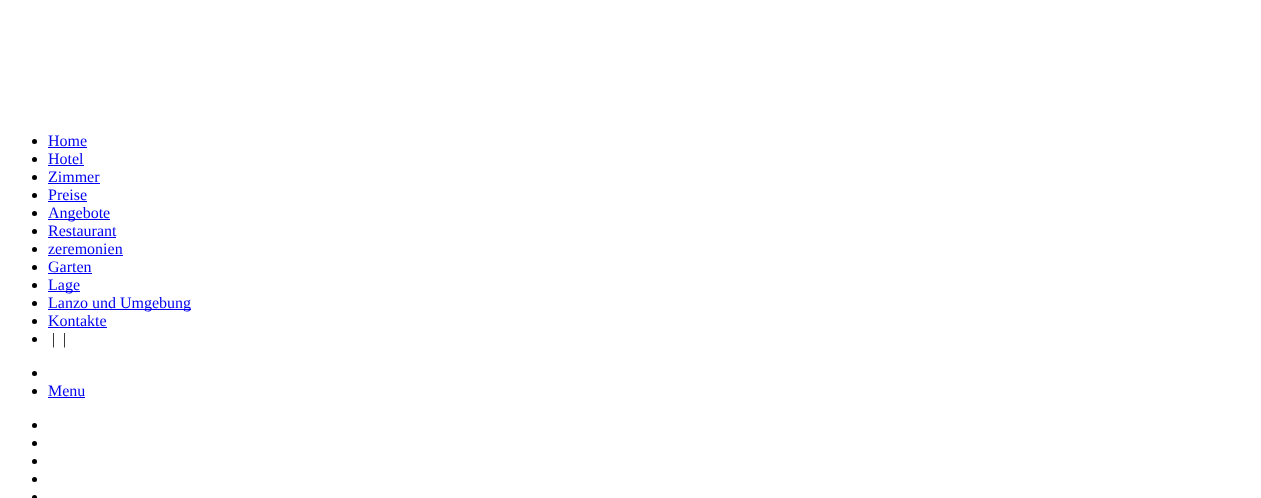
async function draw(canvas) {
  canvas.width = 1261
  canvas.height = 498
  const ctx = canvas.getContext('2d')
  ctx.miterLimit = 4
  ctx.fontKerning = 'normal'

  ctx.fillStyle = '#fff'
  ctx.fillRect(0, 0, 1261, 498)
  ctx.fillStyle = '#000'
  ctx.beginPath()
  ctx.arc(34.5, 141.5, 2.5, 0, 2 * Math.PI)
  ctx.fill()
  ctx.font = '16px Liberation Serif'
  ctx.fillStyle = '#00e'
  ctx.fillText('Home', 48, 146)
  ctx.fillRect(48, 147, 39, 1)
  ctx.fillStyle = '#000'
  ctx.beginPath()
  ctx.arc(34.5, 159.5, 2.5, 0, 2 * Math.PI)
  ctx.fill()
  ctx.fillStyle = '#00e'
  ctx.fillText('Hotel', 48, 164)
  ctx.fillRect(48, 165, 36, 1)
  ctx.fillStyle = '#000'
  ctx.beginPath()
  ctx.arc(34.5, 177.5, 2.5, 0, 2 * Math.PI)
  ctx.fill()
  ctx.fillStyle = '#00e'
  ctx.fillText('Zimmer', 48, 182)
  ctx.fillRect(48, 183, 52, 1)
  ctx.fillStyle = '#000'
  ctx.beginPath()
  ctx.arc(34.5, 195.5, 2.5, 0, 2 * Math.PI)
  ctx.fill()
  ctx.fillStyle = '#00e'
  ctx.fillText('Preise', 48, 200)
  ctx.fillRect(48, 201, 39, 1)
  ctx.fillStyle = '#000'
  ctx.beginPath()
  ctx.arc(34.5, 213.5, 2.5, 0, 2 * Math.PI)
  ctx.fill()
  ctx.fillStyle = '#00e'
  ctx.fillRect(48, 219, 62, 1)
  ctx.fillText('Angebote', 48, 218)
  ctx.fillStyle = '#000'
  ctx.beginPath()
  ctx.arc(34.5, 231.5, 2.5, 0, 2 * Math.PI)
  ctx.fill()
  ctx.fillStyle = '#00e'
  ctx.fillText('Restaurant', 48, 236)
  ctx.fillRect(48, 237, 68, 1)
  ctx.fillStyle = '#000'
  ctx.beginPath()
  ctx.arc(34.5, 249.5, 2.5, 0, 2 * Math.PI)
  ctx.fill()
  ctx.fillStyle = '#00e'
  ctx.fillText('zeremonien', 48, 254)
  ctx.fillRect(48, 255, 75, 1)
  ctx.fillStyle = '#000'
  ctx.beginPath()
  ctx.arc(34.5, 267.5, 2.5, 0, 2 * Math.PI)
  ctx.fill()
  ctx.fillStyle = '#00e'
  ctx.fillText('Garten', 48, 272)
  ctx.fillRect(48, 273, 44, 1)
  ctx.fillStyle = '#000'
  ctx.beginPath()
  ctx.arc(34.5, 285.5, 2.5, 0, 2 * Math.PI)
  ctx.fill()
  ctx.fillStyle = '#00e'
  ctx.fillRect(48, 291, 32, 1)
  ctx.fillText('Lage', 48, 290)
  ctx.fillStyle = '#000'
  ctx.beginPath()
  ctx.arc(34.5, 303.5, 2.5, 0, 2 * Math.PI)
  ctx.fill()
  ctx.fillStyle = '#00e'
  ctx.fillRect(48, 309, 143, 1)
  ctx.fillText('Lanzo und Umgebung', 48, 308)
  ctx.fillStyle = '#000'
  ctx.beginPath()
  ctx.arc(34.5, 321.5, 2.5, 0, 2 * Math.PI)
  ctx.fill()
  ctx.fillStyle = '#00e'
  ctx.fillText('Kontakte', 48, 326)
  ctx.fillRect(48, 327, 59, 1)
  ctx.fillStyle = '#000'
  ctx.beginPath()
  ctx.arc(34.5, 339.5, 2.5, 0, 2 * Math.PI)
  ctx.fill()
  ctx.fillText('|', 52, 344)
  ctx.fillText('|', 63, 344)
  ctx.beginPath()
  ctx.arc(34.5, 373.5, 2.5, 0, 2 * Math.PI)
  ctx.fill()
  ctx.beginPath()
  ctx.arc(34.5, 391.5, 2.5, 0, 2 * Math.PI)
  ctx.fill()
  ctx.fillStyle = '#00e'
  ctx.fillText('Menu', 48, 396)
  ctx.fillRect(48, 397, 37, 1)
  ctx.fillStyle = '#000'
  ctx.beginPath()
  ctx.arc(34.5, 425.5, 2.5, 0, 2 * Math.PI)
  ctx.fill()
  ctx.beginPath()
  ctx.arc(34.5, 443.5, 2.5, 0, 2 * Math.PI)
  ctx.fill()
  ctx.beginPath()
  ctx.arc(34.5, 461.5, 2.5, 0, 2 * Math.PI)
  ctx.fill()
  ctx.beginPath()
  ctx.arc(34.5, 479.5, 2.5, 0, 2 * Math.PI)
  ctx.fill()
  ctx.beginPath()
  ctx.arc(34.5, 497.5, 2.5, 0, 2 * Math.PI)
  ctx.fill()
}

draw(document.querySelector('canvas'))
